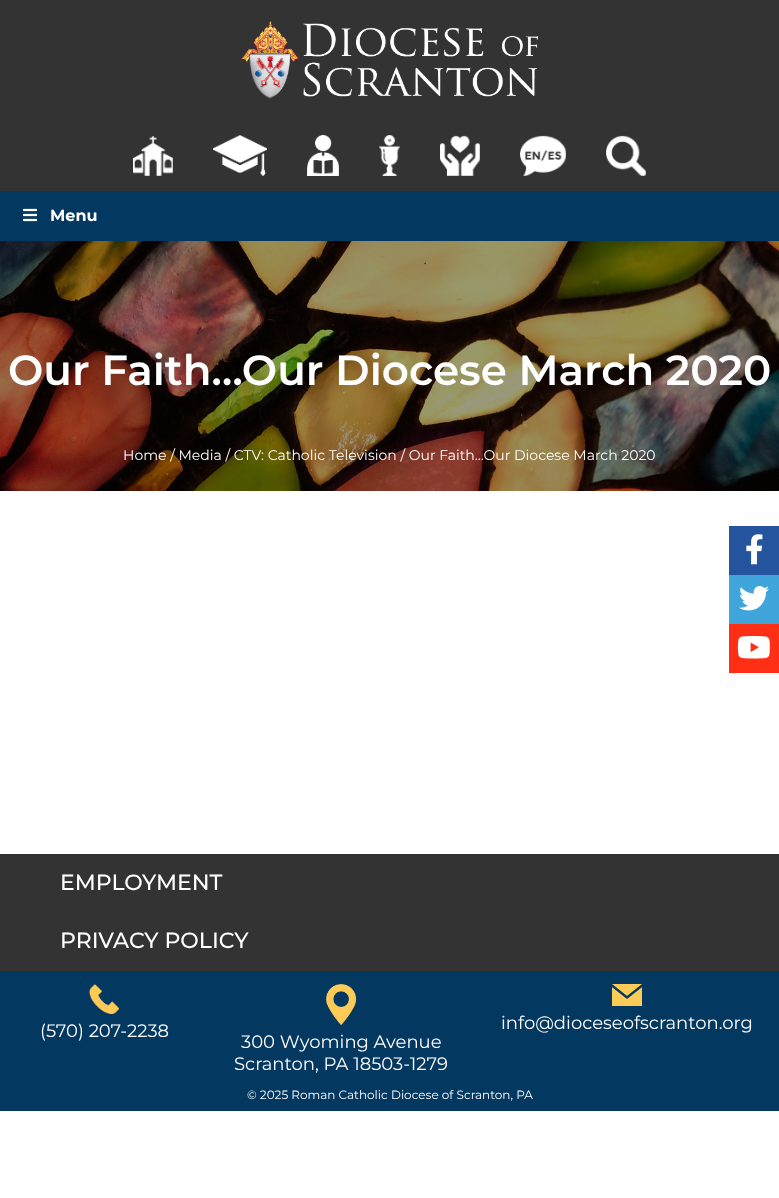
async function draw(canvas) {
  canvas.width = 779
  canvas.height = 1198
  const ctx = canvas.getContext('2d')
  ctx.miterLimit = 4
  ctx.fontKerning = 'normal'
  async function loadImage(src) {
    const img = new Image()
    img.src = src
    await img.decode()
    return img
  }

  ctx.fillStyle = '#fff'
  ctx.fillRect(0, 0, 779, 1198)
  ctx.fillStyle = '#333'
  ctx.fillRect(0, 0, 779, 191)
  ctx.drawImage(await loadImage('image0.png'), 240, 21, 299, 78)
  ctx.drawImage(await loadImage('image1.png'), 133, 135, 40, 41)
  ctx.drawImage(await loadImage('image2.png'), 213, 135, 54, 41)
  ctx.drawImage(await loadImage('image3.png'), 307, 135, 32, 41)
  ctx.drawImage(await loadImage('image4.png'), 379, 135, 21, 41)
  ctx.drawImage(await loadImage('image5.png'), 440, 135, 40, 41)
  ctx.drawImage(await loadImage('image6.png'), 520, 135, 46, 41)
  ctx.drawImage(await loadImage('image7.png'), 606, 135, 40, 41)
  ctx.fillStyle = '#033860'
  ctx.fillRect(0, 191, 779, 50)
  ctx.drawImage(await loadImage('image8.png'), 23, 208, 14, 14)
  ctx.font = 'bold 16px Montserrat'
  ctx.fillStyle = '#fff'
  ctx.fillText('Menu', 50, 221)
  ctx.drawImage(await loadImage('image9.png'), 0, 241, 779, 250)
  ctx.font = '600 42px Montserrat'
  ctx.fillText('Our Faith…Our Diocese March 2020', 8, 385)
  ctx.font = '14px Montserrat'
  ctx.fillText('Home / Media / CTV: Catholic Television / Our Faith…Our Diocese March 2020', 123, 460)
  ctx.fillStyle = '#333'
  ctx.fillRect(0, 854, 779, 117)
  ctx.font = '500 22px Montserrat'
  ctx.fillStyle = '#fff'
  ctx.fillText('EMPLOYMENT', 60, 890)
  ctx.fillText('PRIVACY POLICY', 60, 948)
  ctx.fillStyle = '#033860'
  ctx.fillRect(0, 971, 779, 140)
  ctx.drawImage(await loadImage('image10.png'), 89, 984, 30, 30)
  ctx.font = '18px Montserrat'
  ctx.fillStyle = '#fff'
  ctx.fillText('(570) 207-2238', 40, 1037)
  ctx.drawImage(await loadImage('image11.png'), 612, 984, 30, 22)
  ctx.fillText('info@dioceseofscranton.org', 501, 1029)
  ctx.drawImage(await loadImage('image12.png'), 326, 984, 30, 41)
  ctx.fillText('300 Wyoming Avenue', 241, 1048)
  ctx.fillText('Scranton, PA 18503-1279', 234, 1070)
  ctx.font = '12px Montserrat'
  ctx.fillText('© 2025 Roman Catholic Diocese of Scranton, PA', 247, 1099)
  ctx.fillStyle = '#25549e'
  ctx.fillRect(729, 526, 50, 49)
  ctx.drawImage(await loadImage('image13.png'), 746, 534, 17, 31)
  ctx.fillStyle = '#40a5da'
  ctx.fillRect(729, 575, 50, 49)
  ctx.drawImage(await loadImage('image14.png'), 739, 586, 30, 25)
  ctx.fillStyle = '#ff2f16'
  ctx.fillRect(729, 624, 50, 49)
  ctx.drawImage(await loadImage('image15.png'), 737, 636, 33, 23)
}

draw(document.querySelector('canvas'))
